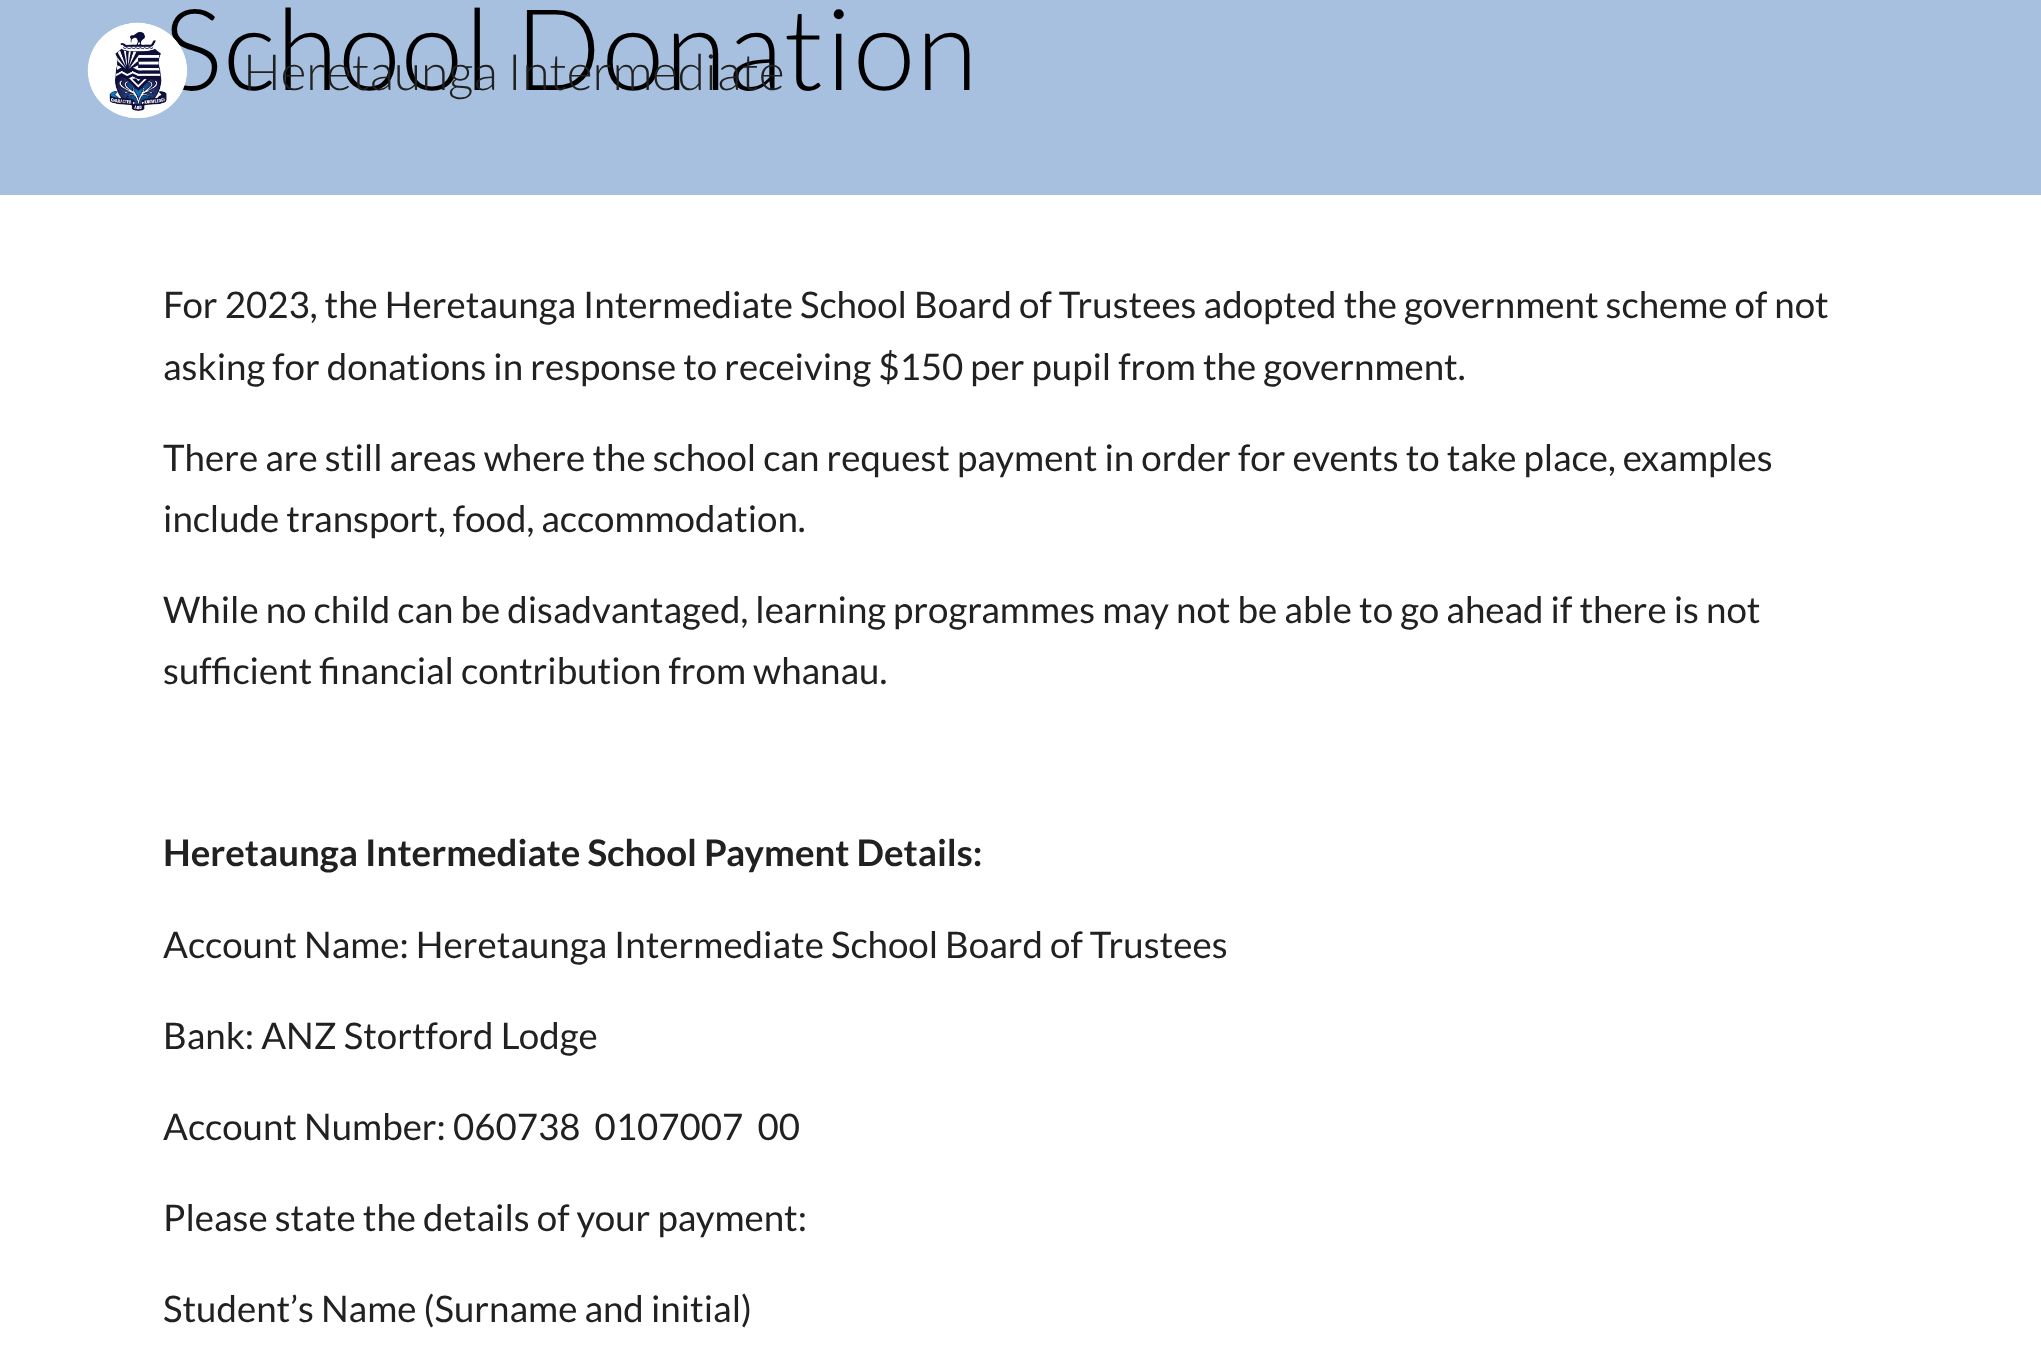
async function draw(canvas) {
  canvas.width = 2041
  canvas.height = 1353
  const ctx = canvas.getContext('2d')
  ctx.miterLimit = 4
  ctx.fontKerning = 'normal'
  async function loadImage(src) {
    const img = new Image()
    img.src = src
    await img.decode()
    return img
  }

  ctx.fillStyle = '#fff'
  ctx.fillRect(0, 0, 2041, 1353)
  ctx.fillStyle = '#a8c0e0'
  ctx.fillRect(0, 0, 2041, 195)
  ctx.letterSpacing = '1.25px'
  ctx.font = '300 113.25px Lato'
  ctx.fillStyle = '#000'
  ctx.fillText('School Donation', 163, 90)
  ctx.letterSpacing = '0px'
  ctx.font = '36.65px Lato'
  ctx.fillStyle = '#212121'
  ctx.fillText('For 2023, the Heretaunga Intermediate School Board of Trustees adopted the government scheme of not', 163, 318)
  ctx.fillText('asking for donations in response to receiving $150 per pupil from the government.', 163, 380)
  ctx.fillText('There are still areas where the school can request payment in order for events to take place, examples', 163, 471)
  ctx.fillText('include transport, food, accommodation.', 163, 532)
  ctx.fillText('While no child can be disadvantaged, learning programmes may not be able to go ahead if there is not', 163, 623)
  ctx.fillText('sufficient financial contribution from whanau.', 163, 684)
  ctx.font = 'bold 36.65px Lato'
  ctx.fillText('Heretaunga Intermediate School Payment Details:', 163, 866)
  ctx.font = '36.65px Lato'
  ctx.fillText('Account Name: Heretaunga Intermediate School Board of Trustees', 163, 958)
  ctx.fillText('Bank: ANZ Stortford Lodge', 163, 1049)
  ctx.fillText('Account Number: 060738  0107007  00', 163, 1140)
  ctx.fillText('Please state the details of your payment:', 163, 1231)
  ctx.fillText('Student’s Name (Surname and initial)', 163, 1322)
  ctx.drawImage(await loadImage('image0.png'), 87, 22, 101, 97)
  ctx.font = '300 50px Lato'
  ctx.fillText('Heretaunga Intermediate', 243, 90)
}

draw(document.querySelector('canvas'))
